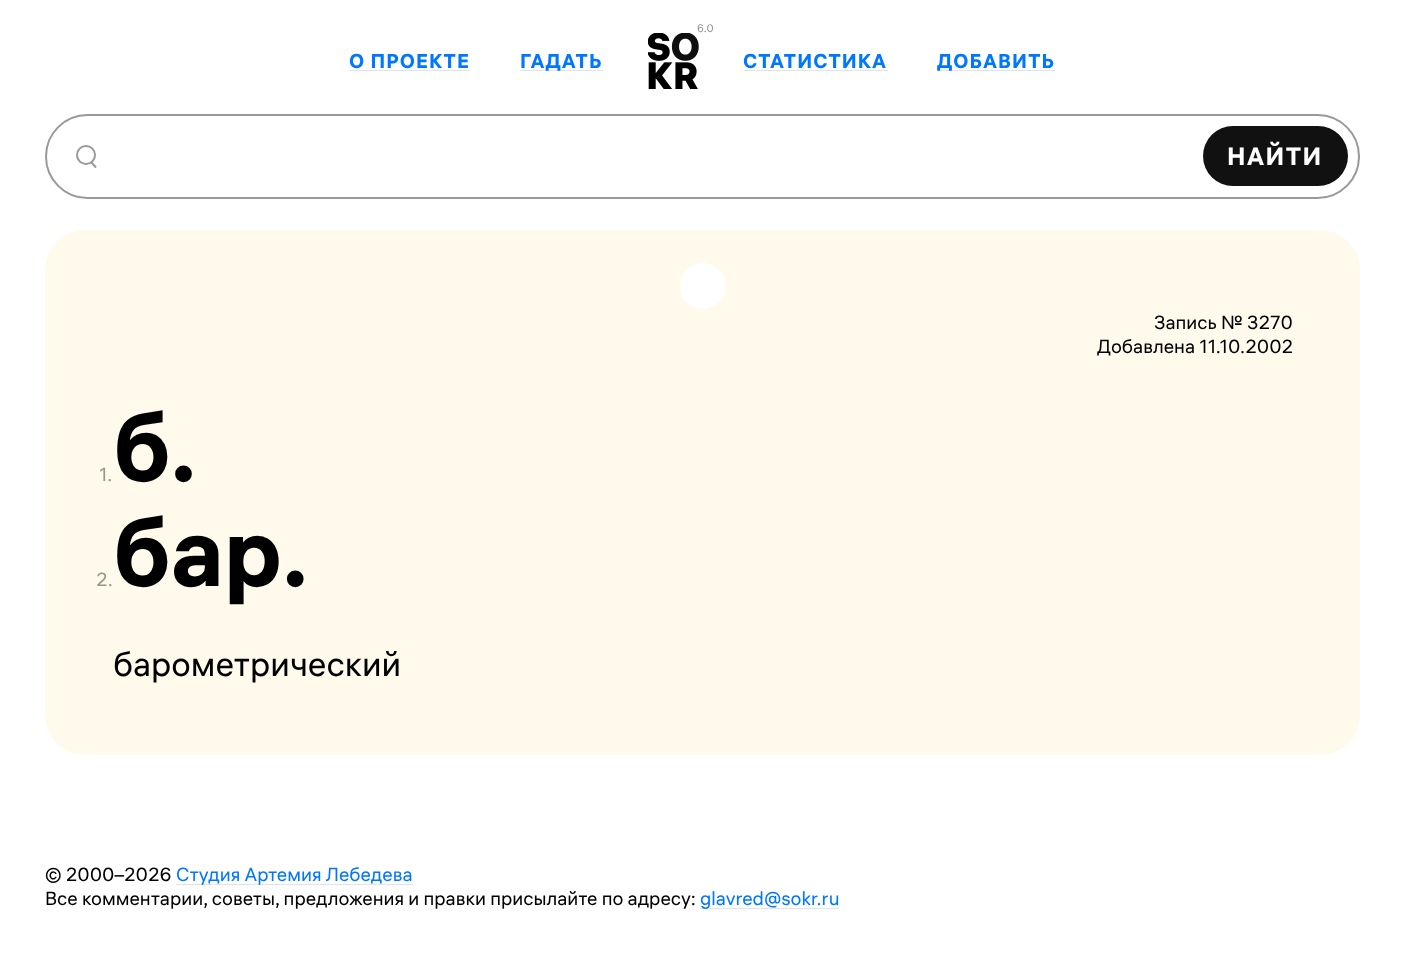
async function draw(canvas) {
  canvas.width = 1405
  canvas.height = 965
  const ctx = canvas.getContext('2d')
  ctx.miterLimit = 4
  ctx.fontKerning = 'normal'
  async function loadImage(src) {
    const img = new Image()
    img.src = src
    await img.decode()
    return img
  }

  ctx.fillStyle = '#fff'
  ctx.fillRect(0, 0, 1405, 965)
  ctx.font = '11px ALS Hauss'
  ctx.fillStyle = '#949494'
  ctx.fillText('6.0', 697, 32)
  ctx.drawImage(await loadImage('image0.png'), 648, 33, 51, 56)
  ctx.letterSpacing = '1px'
  ctx.font = 'bold 20px ALS Hauss'
  ctx.fillStyle = '#07f'
  ctx.fillText('О ПРОЕКТЕ', 349, 68)
  ctx.fillStyle = '#dee2f1'
  ctx.fillRect(350, 70, 120, 1)
  ctx.fillRect(520, 70, 83, 1)
  ctx.fillStyle = '#07f'
  ctx.fillText('ГАДАТЬ', 520, 68)
  ctx.fillText('СТАТИСТИКА', 743, 68)
  ctx.fillStyle = '#dee2f1'
  ctx.fillRect(744, 70, 144, 1)
  ctx.fillRect(938, 70, 117, 1)
  ctx.fillStyle = '#07f'
  ctx.fillText('ДОБАВИТЬ', 937, 68)
  ctx.beginPath()
  ctx.roundRect(46, 115, 1313, 83, 41.5)
  ctx.strokeStyle = '#999'
  ctx.lineWidth = 2
  ctx.stroke()
  ctx.beginPath()
  ctx.arc(86, 155, 9, 0, 2 * Math.PI)
  ctx.stroke()
  ctx.beginPath()
  ctx.moveTo(91.5, 162.5)
  ctx.lineTo(96, 167.5)
  ctx.stroke()
  ctx.fillStyle = '#111'
  ctx.beginPath()
  ctx.roundRect(1203, 126, 145, 60, 30)
  ctx.fill()
  ctx.letterSpacing = '1.25px'
  ctx.font = 'bold 25px ALS Hauss'
  ctx.fillStyle = '#fff'
  ctx.fillText('НАЙТИ', 1227, 165)
  ctx.fillStyle = '#fffaec'
  ctx.beginPath()
  ctx.roundRect(45, 230, 1315, 525, 40)
  ctx.fill()
  ctx.fillStyle = '#fff'
  ctx.beginPath()
  ctx.arc(703, 286, 23, 0, 2 * Math.PI)
  ctx.fill()
  ctx.letterSpacing = '0px'
  ctx.font = '19px ALS Hauss'
  ctx.fillStyle = '#000'
  ctx.fillText('Запись № 3270', 1154, 329)
  ctx.fillText('Добавлена 11.10.2002', 1097, 353)
  ctx.fillStyle = '#99968e'
  ctx.fillText('1.', 99, 481)
  ctx.font = 'bold 95px ALS Hauss'
  ctx.fillStyle = '#000'
  ctx.fillText('б.', 113, 481)
  ctx.font = '19px ALS Hauss'
  ctx.fillStyle = '#99968e'
  ctx.fillText('2.', 96, 586)
  ctx.font = 'bold 95px ALS Hauss'
  ctx.fillStyle = '#000'
  ctx.fillText('бар.', 113, 586)
  ctx.font = '34px ALS Hauss'
  ctx.fillText('барометрический', 113, 676)
  ctx.font = '19px ALS Hauss'
  ctx.fillText('© 2000–2026', 45, 881)
  ctx.fillStyle = '#dee2f1'
  ctx.fillRect(176, 884, 237, 1)
  ctx.fillStyle = '#07f'
  ctx.fillText('Студия Артемия Лебедева', 176, 881)
  ctx.fillStyle = '#000'
  ctx.fillText('Все комментарии, советы, предложения и правки присылайте по адресу:', 45, 905)
  ctx.fillStyle = '#dee2f1'
  ctx.fillRect(700, 908, 139, 1)
  ctx.fillStyle = '#07f'
  ctx.fillText('glavred@sokr.ru', 700, 905)
}

draw(document.querySelector('canvas'))
